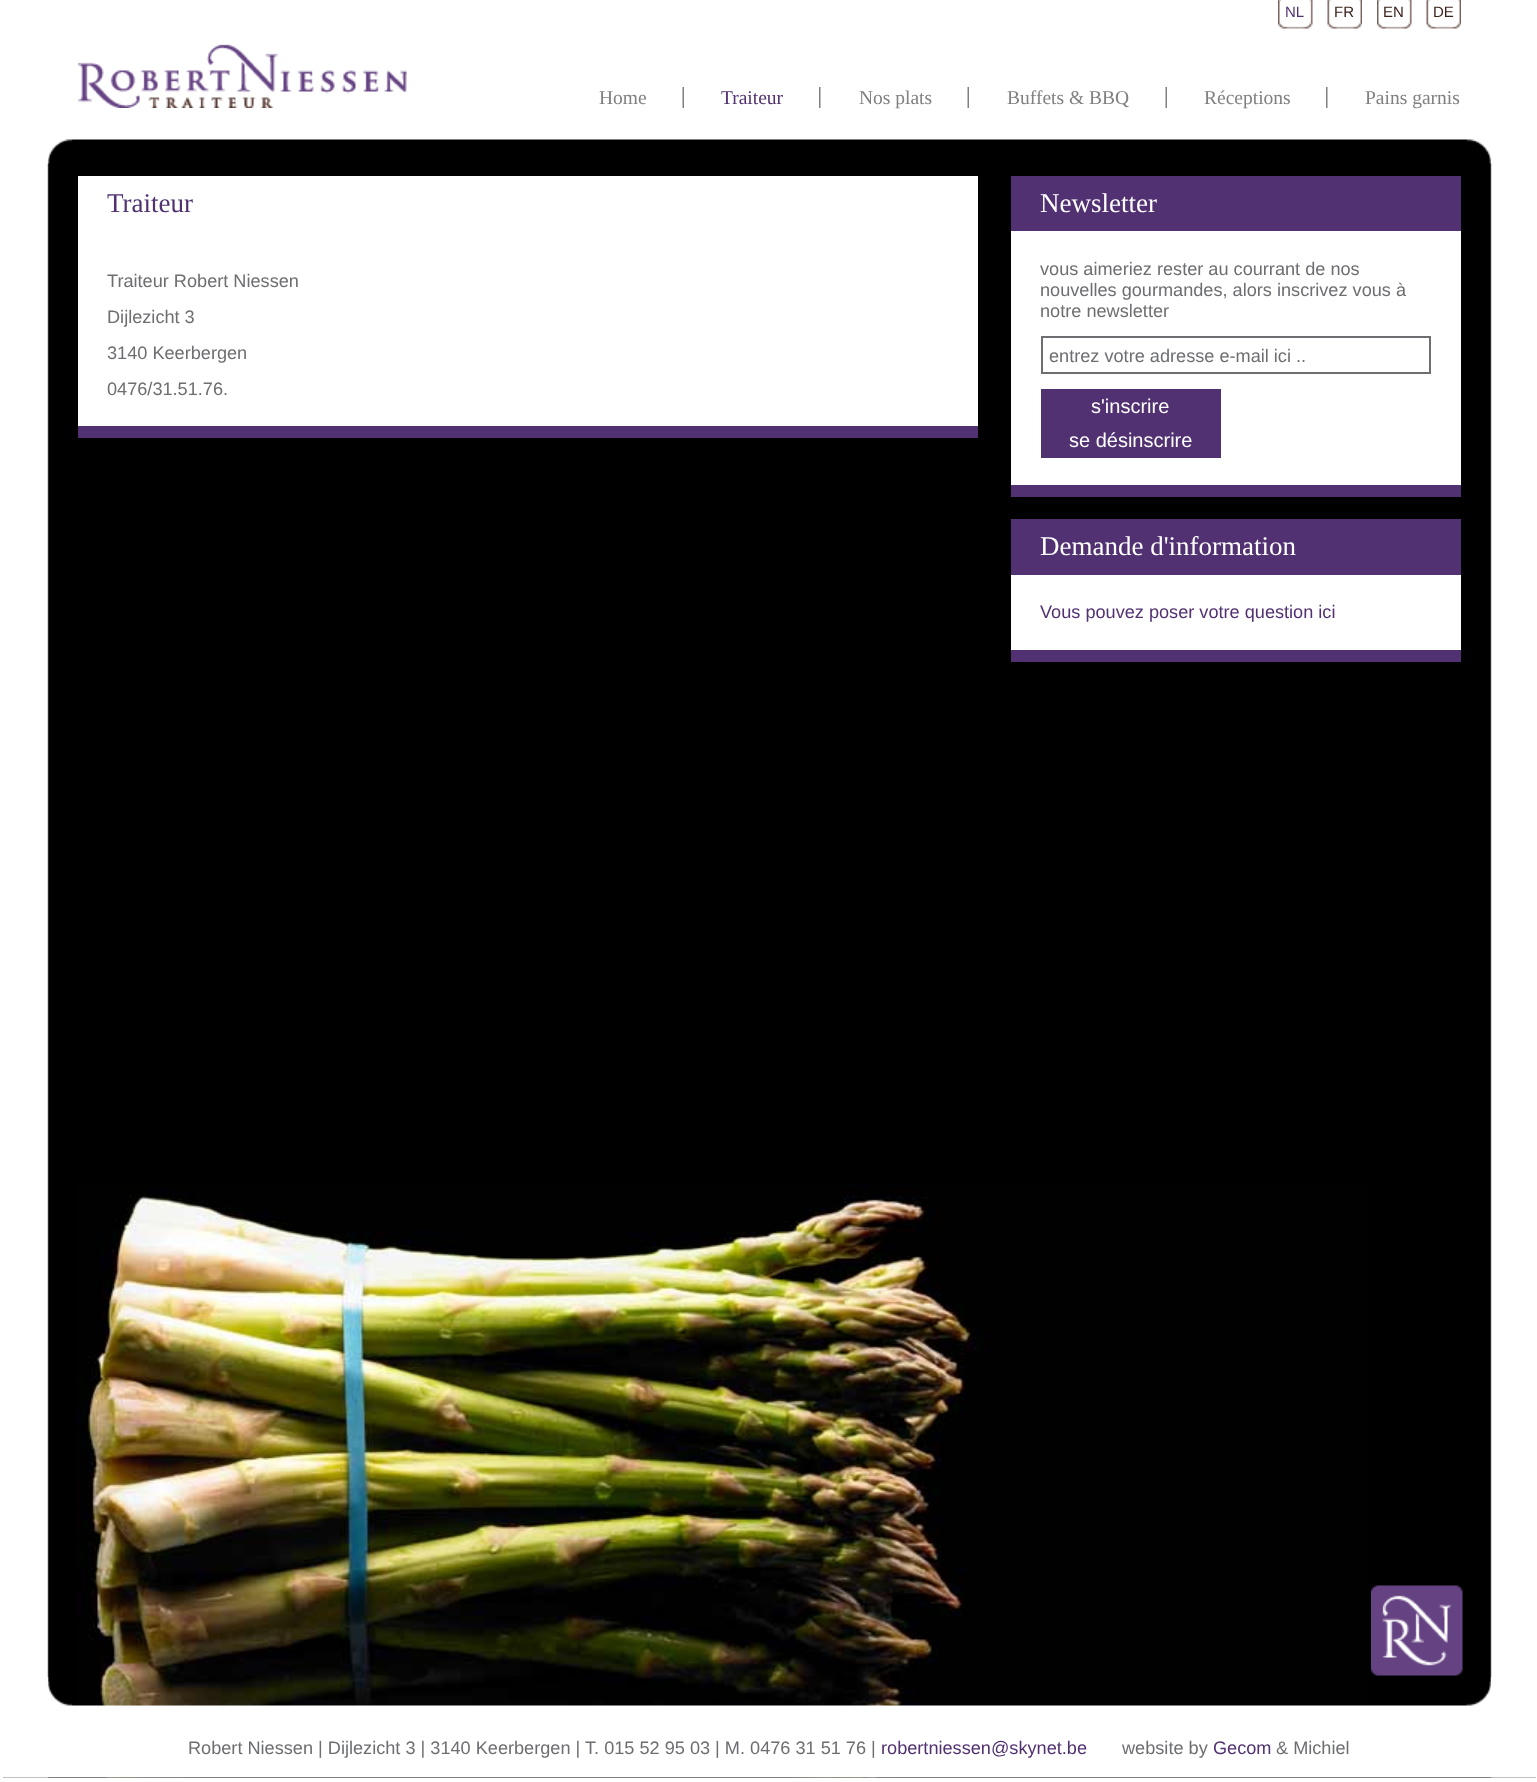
async function draw(canvas) {
  canvas.width = 1537
  canvas.height = 1782
  const ctx = canvas.getContext('2d')
  ctx.miterLimit = 4
  ctx.fontKerning = 'normal'
  async function loadImage(src) {
    const img = new Image()
    img.src = src
    await img.decode()
    return img
  }

  ctx.fillStyle = '#fff'
  ctx.fillRect(0, 0, 1537, 1782)
  ctx.fillStyle = '#000'
  ctx.fillRect(3, 139, 1533, 1639)
  ctx.drawImage(await loadImage('image0.png'), 76, 1183, 1290, 595)
  ctx.drawImage(await loadImage('image1.png'), 3, 0, 1533, 1778)
  ctx.drawImage(await loadImage('image2.png'), 47, 0, 1445, 164)
  ctx.drawImage(await loadImage('image3.png'), 1278, 0, 35, 29)
  ctx.font = '15px Liberation Sans'
  ctx.fillStyle = '#513171'
  ctx.fillText('NL', 1285, 17)
  ctx.drawImage(await loadImage('image4.png'), 1327, 0, 35, 29)
  ctx.fillStyle = '#3a221c'
  ctx.fillText('FR', 1334, 17)
  ctx.drawImage(await loadImage('image3.png'), 1377, 0, 35, 29)
  ctx.fillText('EN', 1383, 17)
  ctx.drawImage(await loadImage('image4.png'), 1426, 0, 35, 29)
  ctx.fillText('DE', 1433, 17)
  ctx.drawImage(await loadImage('image5.png'), 78, 44, 329, 64)
  ctx.drawImage(await loadImage('image6.png'), 682, 87, 2, 21)
  ctx.font = '19.5px Liberation Serif'
  ctx.fillStyle = '#808080'
  ctx.fillText('Home', 599, 104)
  ctx.drawImage(await loadImage('image7.png'), 819, 87, 2, 21)
  ctx.fillStyle = '#513171'
  ctx.fillText('Traiteur', 721, 104)
  ctx.drawImage(await loadImage('image6.png'), 967, 87, 2, 21)
  ctx.fillStyle = '#808080'
  ctx.fillText('Nos plats', 859, 104)
  ctx.drawImage(await loadImage('image6.png'), 1165, 87, 2, 21)
  ctx.fillText('Buffets & BBQ', 1007, 104)
  ctx.drawImage(await loadImage('image7.png'), 1326, 87, 2, 21)
  ctx.fillText('Réceptions', 1204, 104)
  ctx.fillText('Pains garnis', 1365, 104)
  ctx.drawImage(await loadImage('image8.png'), 1371, 1585, 92, 91)
  ctx.fillStyle = '#fff'
  ctx.fillRect(78, 176, 900, 250)
  ctx.fillStyle = '#513171'
  ctx.fillRect(78, 426, 900, 12)
  ctx.font = '27px Liberation Serif'
  ctx.fillText('Traiteur', 107, 212)
  ctx.font = '18.15px Liberation Sans'
  ctx.fillStyle = '#6d6e71'
  ctx.fillText('Traiteur Robert Niessen', 107, 287)
  ctx.fillText('Dijlezicht 3', 107, 323)
  ctx.fillText('3140 Keerbergen', 107, 359)
  ctx.fillText('0476/31.51.76.', 107, 395)
  ctx.fillStyle = '#513171'
  ctx.fillRect(1011, 176, 450, 55)
  ctx.font = '27px Liberation Serif'
  ctx.fillStyle = '#fff'
  ctx.fillText('Newsletter', 1040, 212)
  ctx.fillRect(1011, 231, 450, 254)
  ctx.fillStyle = '#513171'
  ctx.fillRect(1011, 485, 450, 12)
  ctx.font = '18.15px Liberation Sans'
  ctx.fillStyle = '#6d6e71'
  ctx.fillText('vous aimeriez rester au courrant de nos', 1040, 275)
  ctx.fillText('nouvelles gourmandes, alors inscrivez vous à', 1040, 296)
  ctx.fillText('notre newsletter', 1040, 317)
  ctx.strokeStyle = '#6d6e71'
  ctx.lineWidth = 2
  ctx.strokeRect(1042, 337, 388, 36)
  ctx.fillText('entrez votre adresse e-mail ici ..', 1049, 362)
  ctx.fillStyle = '#513171'
  ctx.fillRect(1041, 389, 180, 69)
  ctx.font = '20px Liberation Sans'
  ctx.fillStyle = '#fff'
  ctx.fillText('s\'inscrire', 1091, 413)
  ctx.fillText('se désinscrire', 1069, 447)
  ctx.fillStyle = '#513171'
  ctx.fillRect(1011, 519, 450, 56)
  ctx.font = '27px Liberation Serif'
  ctx.fillStyle = '#fff'
  ctx.fillText('Demande d\'information', 1040, 555)
  ctx.fillRect(1011, 575, 450, 75)
  ctx.fillStyle = '#513171'
  ctx.fillRect(1011, 650, 450, 12)
  ctx.font = '18.15px Liberation Sans'
  ctx.fillText('Vous pouvez poser votre question ici', 1040, 618)
  ctx.drawImage(await loadImage('image9.png'), 3, 1677, 1533, 101)
  ctx.fillStyle = '#6d6e71'
  ctx.fillText('Robert Niessen | Dijlezicht 3 | 3140 Keerbergen | T. 015 52 95 03 | M. 0476 31 51 76 |', 188, 1754)
  ctx.fillStyle = '#513171'
  ctx.fillText('robertniessen@skynet.be', 881, 1754)
  ctx.fillStyle = '#6d6e71'
  ctx.fillText('website by', 1122, 1754)
  ctx.fillStyle = '#513171'
  ctx.fillText('Gecom', 1213, 1754)
  ctx.fillStyle = '#6d6e71'
  ctx.fillText('& Michiel', 1276, 1754)
}

draw(document.querySelector('canvas'))
